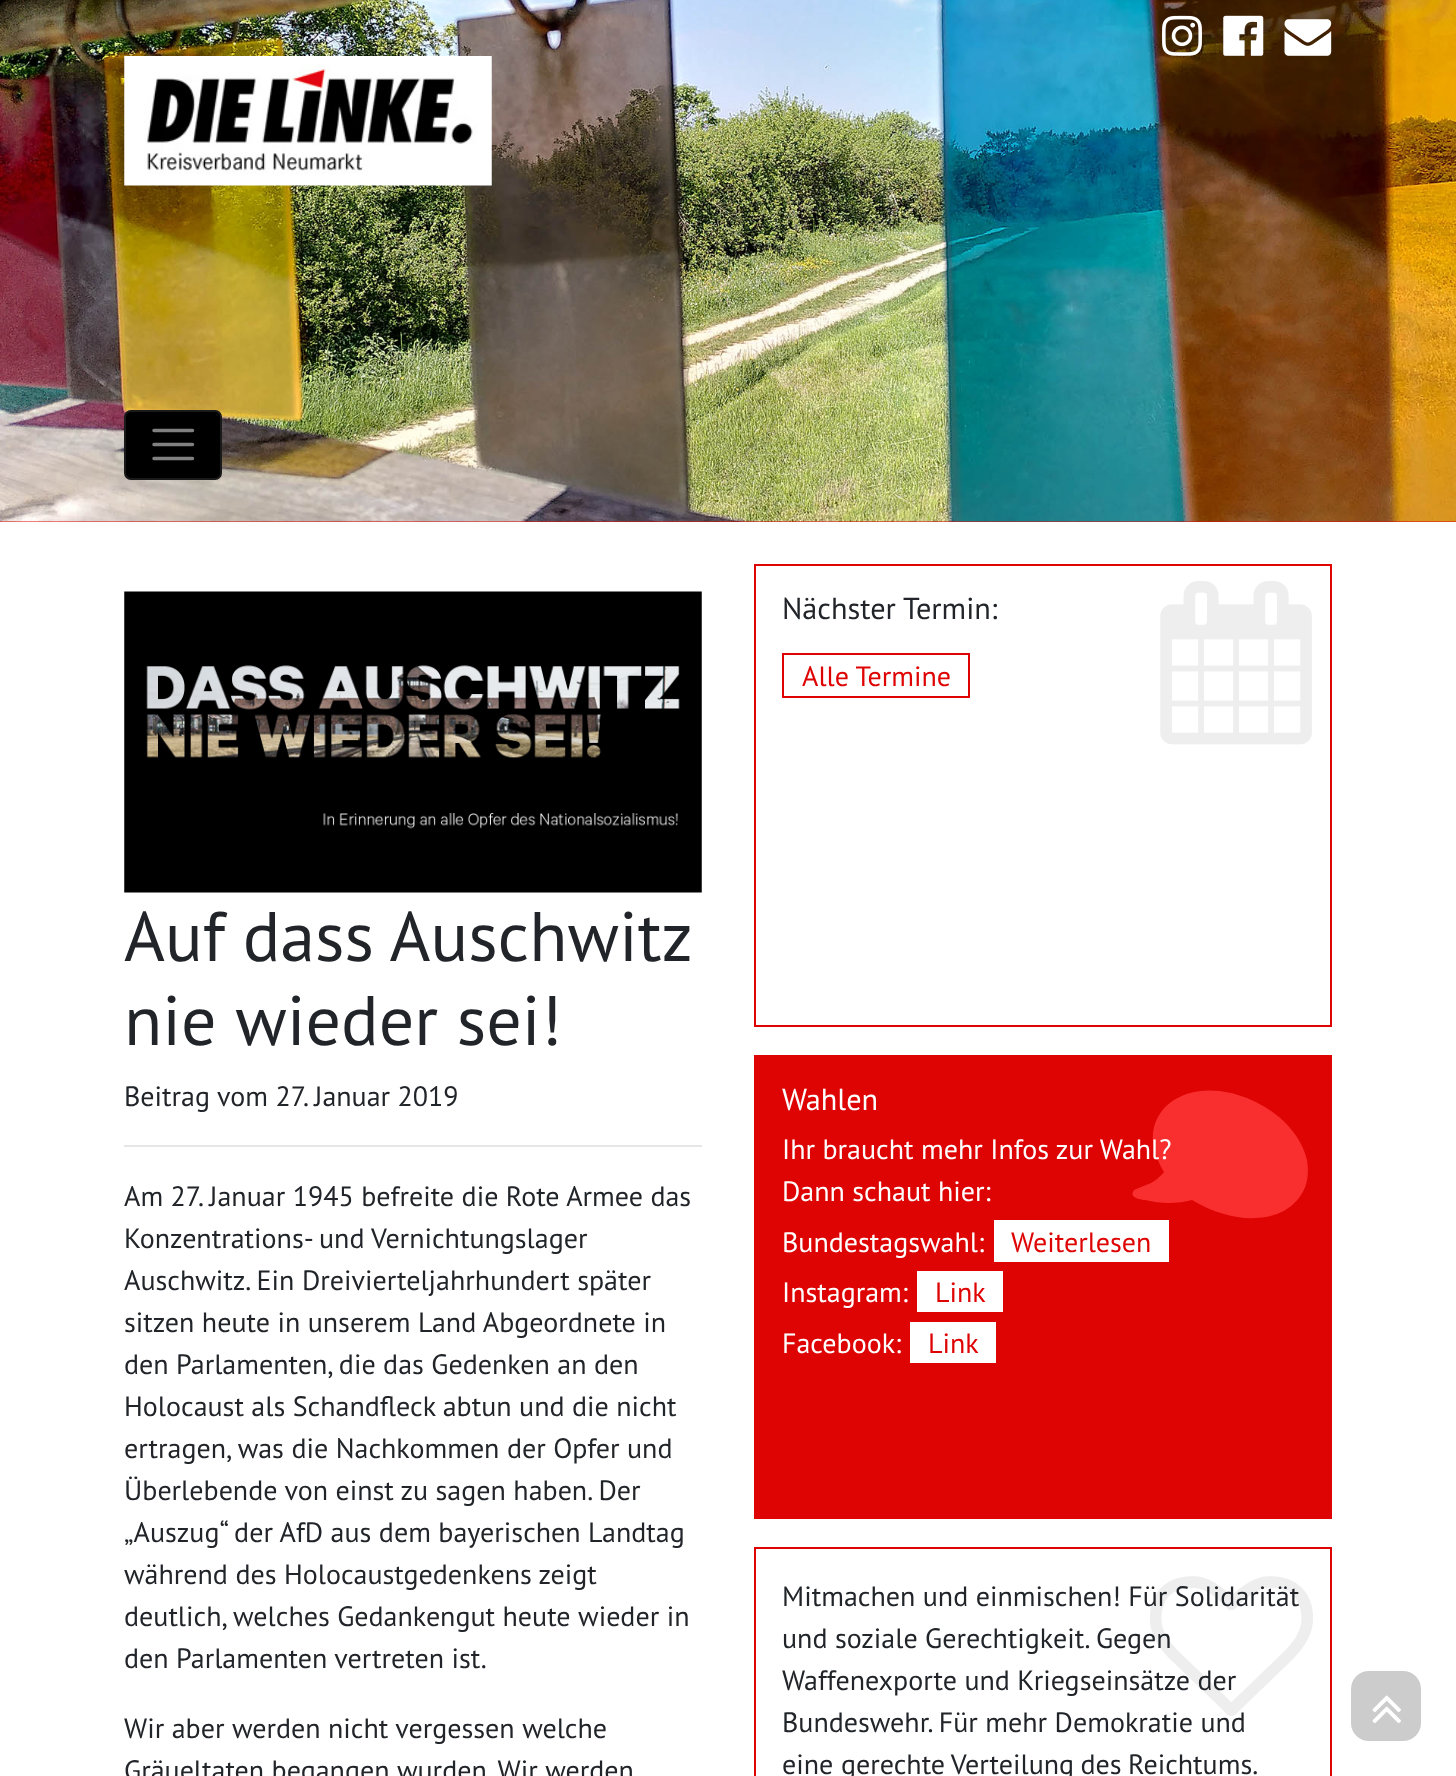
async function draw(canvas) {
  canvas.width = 1456
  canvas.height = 1776
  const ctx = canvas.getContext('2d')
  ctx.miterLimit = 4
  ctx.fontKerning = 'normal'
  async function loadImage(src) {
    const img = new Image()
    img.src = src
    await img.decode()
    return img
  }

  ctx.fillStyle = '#fff'
  ctx.fillRect(0, 0, 1456, 1776)
  ctx.fillStyle = '#df0404'
  ctx.fillRect(0, 521, 1456, 1)
  ctx.drawImage(await loadImage('image0.png'), 0, 0, 1456, 522)
  ctx.drawImage(await loadImage('image1.png'), 1162, 15, 40, 41)
  ctx.drawImage(await loadImage('image2.png'), 1223, 15, 41, 41)
  ctx.drawImage(await loadImage('image3.png'), 1284, 19, 48, 37)
  ctx.drawImage(await loadImage('image4.png'), 124, 56, 368, 130)
  ctx.fillStyle = '#000'
  ctx.beginPath()
  ctx.roundRect(124, 410, 98, 70, 7)
  ctx.fill()
  ctx.beginPath()
  ctx.roundRect(125, 411, 96, 68, 6)
  ctx.strokeStyle = '#ffffff1a'
  ctx.lineWidth = 2
  ctx.stroke()
  ctx.beginPath()
  ctx.moveTo(154, 430.5)
  ctx.lineTo(192.5, 430.5)
  ctx.moveTo(154, 444.5)
  ctx.lineTo(192.5, 444.5)
  ctx.moveTo(154, 458.5)
  ctx.lineTo(192.5, 458.5)
  ctx.strokeStyle = '#808080'
  ctx.lineWidth = 3.5
  ctx.lineCap = 'round'
  ctx.stroke()
  ctx.drawImage(await loadImage('image5.png'), 124, 591, 578, 302)
  ctx.wordSpacing = '-1px'
  ctx.font = '70px PT Sans'
  ctx.fillStyle = '#212529'
  ctx.fillText('Auf dass Auschwitz', 124, 961)
  ctx.wordSpacing = '0px'
  ctx.fillText('nie wieder sei!', 124, 1045)
  ctx.font = '28px PT Sans'
  ctx.fillText('Beitrag vom 27. Januar 2019', 124, 1106)
  ctx.fillStyle = '#e6e6e6'
  ctx.fillRect(124, 1145, 578, 2)
  ctx.fillStyle = '#212529'
  ctx.fillText('Am 27. Januar 1945 befreite die Rote Armee das', 124, 1206)
  ctx.fillText('Konzentrations- und Vernichtungslager', 124, 1248)
  ctx.fillText('Auschwitz. Ein Dreivierteljahrhundert später', 124, 1290)
  ctx.fillText('sitzen heute in unserem Land Abgeordnete in', 124, 1332)
  ctx.fillText('den Parlamenten, die das Gedenken an den', 124, 1374)
  ctx.fillText('Holocaust als Schandfleck abtun und die nicht', 124, 1416)
  ctx.fillText('ertragen, was die Nachkommen der Opfer und', 124, 1458)
  ctx.fillText('Überlebende von einst zu sagen haben. Der', 124, 1500)
  ctx.fillText('„Auszug“ der AfD aus dem bayerischen Landtag', 124, 1542)
  ctx.fillText('während des Holocaustgedenkens zeigt', 124, 1584)
  ctx.fillText('deutlich, welches Gedankengut heute wieder in', 124, 1626)
  ctx.fillText('den Parlamenten vertreten ist.', 124, 1668)
  ctx.fillText('Wir aber werden nicht vergessen welche', 124, 1738)
  ctx.fillText('Gräueltaten begangen wurden. Wir werden', 124, 1780)
  ctx.strokeStyle = '#df0404'
  ctx.lineWidth = 2
  ctx.strokeRect(755, 565, 576, 461)
  ctx.font = '30.25px PT Sans'
  ctx.fillText('Nächster Termin:', 782, 619)
  ctx.drawImage(await loadImage('image6.png'), 1160, 581, 152, 164)
  ctx.strokeRect(783, 654, 186, 43)
  ctx.font = '28px PT Sans'
  ctx.fillStyle = '#df0404'
  ctx.fillText('Alle Termine', 802, 686)
  ctx.fillRect(754, 1055, 578, 464)
  ctx.font = '30.25px PT Sans'
  ctx.fillStyle = '#fff'
  ctx.fillText('Wahlen', 782, 1110)
  ctx.fillStyle = '#f92f2f'
  ctx.beginPath()
  ctx.moveTo(1307, 1160)
  ctx.bezierCurveTo(1309, 1172, 1308, 1185, 1301, 1195)
  ctx.bezierCurveTo(1285, 1220, 1250, 1222, 1224, 1214)
  ctx.bezierCurveTo(1213, 1211, 1202, 1206, 1192, 1200)
  ctx.bezierCurveTo(1185, 1202, 1177, 1203, 1169, 1203)
  ctx.bezierCurveTo(1161, 1203, 1153, 1202, 1145, 1200)
  ctx.bezierCurveTo(1142, 1200, 1130, 1198, 1133, 1192)
  ctx.lineTo(1134, 1190)
  ctx.lineTo(1146, 1185)
  ctx.bezierCurveTo(1153, 1183, 1159, 1178, 1164, 1172)
  ctx.bezierCurveTo(1156, 1159, 1150, 1142, 1154, 1127)
  ctx.bezierCurveTo(1157, 1116, 1164, 1106, 1174, 1100)
  ctx.bezierCurveTo(1206, 1080, 1252, 1094, 1279, 1117)
  ctx.bezierCurveTo(1292, 1128, 1303, 1143, 1307, 1160)
  ctx.closePath()
  ctx.fill()
  ctx.font = '28px PT Sans'
  ctx.fillStyle = '#fff'
  ctx.fillText('Ihr braucht mehr Infos zur Wahl?', 782, 1159)
  ctx.fillText('Dann schaut hier:', 782, 1201)
  ctx.fillText('Bundestagswahl:', 782, 1252)
  ctx.fillRect(994, 1220, 175, 42)
  ctx.fillStyle = '#df0404'
  ctx.fillText('Weiterlesen', 1011, 1252)
  ctx.fillStyle = '#fff'
  ctx.fillText('Instagram:', 782, 1302)
  ctx.fillRect(917, 1271, 86, 41)
  ctx.fillStyle = '#df0404'
  ctx.fillText('Link', 935, 1302)
  ctx.fillStyle = '#fff'
  ctx.fillText('Facebook:', 782, 1353)
  ctx.fillRect(910, 1322, 86, 41)
  ctx.fillStyle = '#df0404'
  ctx.fillText('Link', 928, 1353)
  ctx.strokeRect(755, 1548, 576, 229)
  ctx.drawImage(await loadImage('image7.png'), 1150, 1576, 163, 140)
  ctx.fillStyle = '#212529'
  ctx.fillText('Mitmachen und einmischen! Für Solidarität', 782, 1606)
  ctx.fillText('und soziale Gerechtigkeit. Gegen', 782, 1648)
  ctx.fillText('Waffenexporte und Kriegseinsätze der', 782, 1690)
  ctx.fillText('Bundeswehr. Für mehr Demokratie und', 782, 1732)
  ctx.fillText('eine', 782, 1774)
  ctx.wordSpacing = '-1px'
  ctx.fillText('gerechte Verteilung des Reichtums.', 841, 1774)
  ctx.fillStyle = '#ccc'
  ctx.beginPath()
  ctx.roundRect(1351, 1671, 70, 70, 18)
  ctx.fill()
  ctx.drawImage(await loadImage('image8.png'), 1372, 1695, 29, 29)
}

draw(document.querySelector('canvas'))
